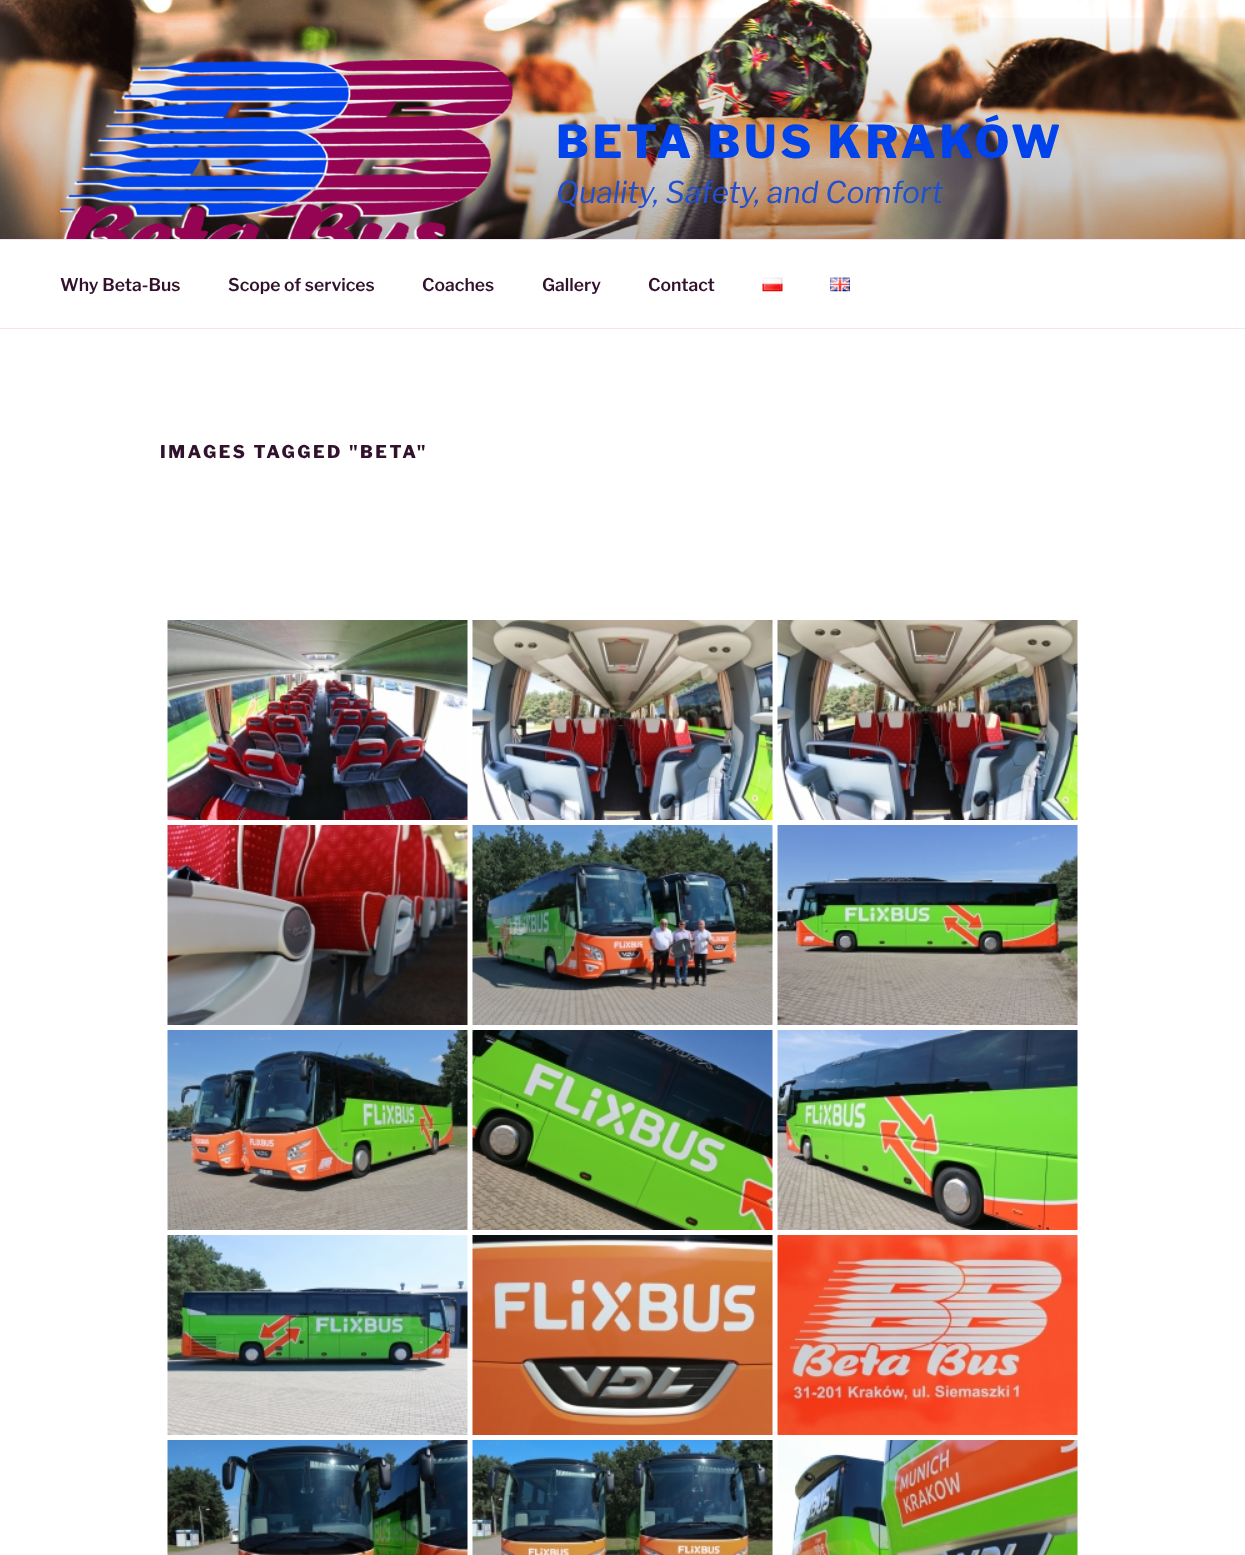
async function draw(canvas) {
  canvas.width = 1245
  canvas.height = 1555
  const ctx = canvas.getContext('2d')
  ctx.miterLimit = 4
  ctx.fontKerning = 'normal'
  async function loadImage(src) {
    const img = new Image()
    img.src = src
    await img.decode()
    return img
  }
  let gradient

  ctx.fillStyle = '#fff'
  ctx.fillRect(0, 0, 1245, 1555)
  ctx.drawImage(await loadImage('image0.png'), 0, 0, 1245, 239)
  gradient = ctx.createLinearGradient(623, 0, 623, 329)
  gradient.addColorStop(0, '#00000000')
  gradient.addColorStop(0.75, '#0000004d')
  gradient.addColorStop(1, '#0000004d')
  ctx.fillStyle = gradient
  ctx.fillRect(0, 18, 1245, 221)
  ctx.drawImage(await loadImage('image1.png'), 60, 60, 453, 179)
  ctx.letterSpacing = '3.6px'
  ctx.font = '100 45px Libre Franklin'
  ctx.fillStyle = '#0143eb'
  ctx.fillText('BETA BUS KRAKÓW', 556, 158)
  ctx.letterSpacing = '0px'
  ctx.font = 'italic 100 30px Libre Franklin'
  ctx.fillStyle = '#214fd1'
  ctx.fillText('Quality, Safety, and Comfort', 556, 203)
  ctx.fillStyle = '#f6e4f3'
  ctx.fillRect(0, 239, 1245, 1)
  ctx.fillRect(0, 328, 1245, 1)
  ctx.font = '100 17.5px "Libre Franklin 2"'
  ctx.fillStyle = '#32112d'
  ctx.fillText('Why Beta-Bus', 60, 291)
  ctx.fillText('Scope of services', 228, 291)
  ctx.fillText('Coaches', 422, 291)
  ctx.fillText('Gallery', 542, 291)
  ctx.fillText('Contact', 648, 291)
  ctx.drawImage(await loadImage('image2.png'), 762, 277, 21, 15)
  ctx.drawImage(await loadImage('image3.png'), 830, 277, 20, 15)
  ctx.letterSpacing = '2.5px'
  ctx.font = '100 17.5px Libre Franklin'
  ctx.fillText('IMAGES TAGGED "BETA"', 160, 458)
  ctx.drawImage(await loadImage('image4.png'), 167, 620, 301, 200)
  ctx.drawImage(await loadImage('image5.png'), 472, 620, 301, 200)
  ctx.drawImage(await loadImage('image6.png'), 777, 620, 301, 200)
  ctx.drawImage(await loadImage('image7.png'), 167, 825, 301, 200)
  ctx.drawImage(await loadImage('image8.png'), 472, 825, 301, 200)
  ctx.drawImage(await loadImage('image9.png'), 777, 825, 301, 200)
  ctx.drawImage(await loadImage('image10.png'), 167, 1030, 301, 200)
  ctx.drawImage(await loadImage('image11.png'), 472, 1030, 301, 200)
  ctx.drawImage(await loadImage('image12.png'), 777, 1030, 301, 200)
  ctx.drawImage(await loadImage('image13.png'), 167, 1235, 301, 200)
  ctx.drawImage(await loadImage('image14.png'), 472, 1235, 301, 200)
  ctx.drawImage(await loadImage('image15.png'), 777, 1235, 301, 200)
  ctx.drawImage(await loadImage('image16.png'), 167, 1440, 301, 115)
  ctx.drawImage(await loadImage('image17.png'), 472, 1440, 301, 115)
  ctx.drawImage(await loadImage('image18.png'), 777, 1440, 301, 115)
}

draw(document.querySelector('canvas'))
